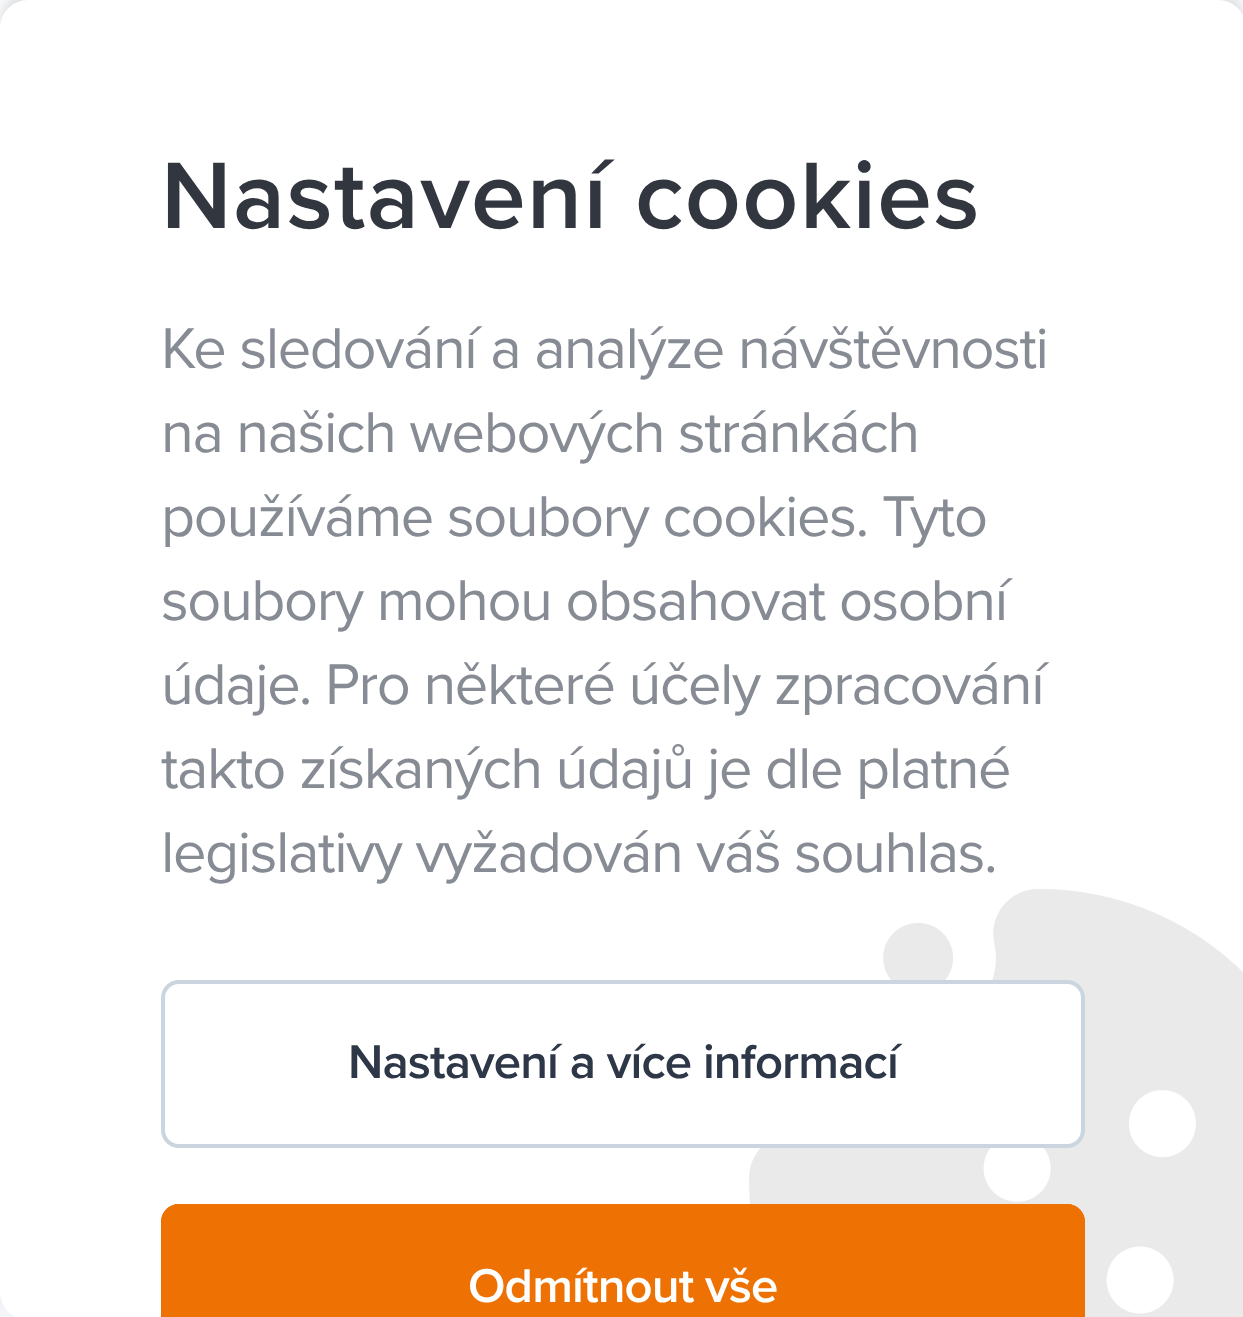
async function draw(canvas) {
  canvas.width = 1243
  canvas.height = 1317
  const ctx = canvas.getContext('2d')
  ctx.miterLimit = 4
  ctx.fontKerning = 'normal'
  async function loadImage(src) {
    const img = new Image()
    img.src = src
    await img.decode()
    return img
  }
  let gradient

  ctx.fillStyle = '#fff'
  ctx.fillRect(0, 0, 1243, 1317)
  gradient = ctx.createLinearGradient(623, 329, 623, 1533)
  gradient.addColorStop(0, '#fff')
  gradient.addColorStop(1, '#f4f6fa')
  ctx.fillStyle = gradient
  ctx.fillRect(0, 1292, 16, 25)
  ctx.fillStyle = '#13233914'
  ctx.filter = 'blur(3.5px)'
  ctx.beginPath()
  ctx.roundRect(0, -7, 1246, 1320, 28)
  ctx.fill()
  ctx.filter = 'none'
  ctx.filter = 'blur(17.5px)'
  ctx.beginPath()
  ctx.roundRect(0, -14, 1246, 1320, 28)
  ctx.fill()
  ctx.filter = 'none'
  ctx.fillStyle = '#fff'
  ctx.beginPath()
  ctx.moveTo(28, 0)
  ctx.lineTo(1218, 0)
  ctx.bezierCurveTo(1233.5, 0, 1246, 12.5, 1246, 28)
  ctx.lineTo(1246, 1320)
  ctx.lineTo(28, 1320)
  ctx.bezierCurveTo(12.5, 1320, 0, 1307.5, 0, 1292)
  ctx.lineTo(0, 28)
  ctx.bezierCurveTo(0, 12.5, 12.5, 0, 28, 0)
  ctx.closePath()
  ctx.fill()
  ctx.drawImage(await loadImage('image0.png'), 749, 889, 494, 428)
  ctx.letterSpacing = '1.25px'
  ctx.font = '600 98px Proxima Nova'
  ctx.fillStyle = '#32373f'
  ctx.fillText('Nastavení cookies', 161, 228)
  ctx.letterSpacing = '-1.4px'
  ctx.font = '59.5px Proxima Nova'
  ctx.fillStyle = '#868b94'
  ctx.fillText('Ke sledování a analýze návštěvnosti', 161, 368)
  ctx.fillText('na našich webových stránkách', 161, 452)
  ctx.fillText('používáme soubory cookies. Tyto', 161, 536)
  ctx.fillText('soubory mohou obsahovat osobní', 161, 620)
  ctx.fillText('údaje. Pro některé účely zpracování', 161, 704)
  ctx.fillText('takto získaných údajů je dle platné', 161, 788)
  ctx.fillText('legislativy vyžadován váš souhlas.', 161, 872)
  ctx.fillStyle = '#fff'
  ctx.beginPath()
  ctx.roundRect(163, 982, 920, 164, 16)
  ctx.fill()
  ctx.strokeStyle = '#cbd5e0'
  ctx.lineWidth = 4
  ctx.stroke()
  ctx.letterSpacing = '-0.9px'
  ctx.font = '600 49px Proxima Nova'
  ctx.fillStyle = '#2d3748'
  ctx.fillText('Nastavení a více informací', 348, 1078)
  ctx.fillStyle = '#ee7203'
  ctx.beginPath()
  ctx.moveTo(179, 1204)
  ctx.lineTo(1067, 1204)
  ctx.bezierCurveTo(1077, 1204, 1085, 1212, 1085, 1222)
  ctx.lineTo(1085, 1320)
  ctx.lineTo(161, 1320)
  ctx.lineTo(161, 1222)
  ctx.bezierCurveTo(161, 1212, 169, 1204, 179, 1204)
  ctx.closePath()
  ctx.fill()
  ctx.beginPath()
  ctx.moveTo(179, 1204)
  ctx.bezierCurveTo(169, 1204, 161, 1212, 161, 1222)
  ctx.lineTo(161, 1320)
  ctx.lineTo(168, 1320)
  ctx.lineTo(168, 1222)
  ctx.bezierCurveTo(168, 1216, 173, 1211, 179, 1211)
  ctx.lineTo(1067, 1211)
  ctx.bezierCurveTo(1073, 1211, 1078, 1216, 1078, 1222)
  ctx.lineTo(1078, 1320)
  ctx.lineTo(1085, 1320)
  ctx.lineTo(1085, 1222)
  ctx.bezierCurveTo(1085, 1212, 1077, 1204, 1067, 1204)
  ctx.closePath()
  ctx.fill()
  ctx.fillStyle = '#fff'
  ctx.fillText('Odmítnout vše', 468, 1302)
}

draw(document.querySelector('canvas'))
